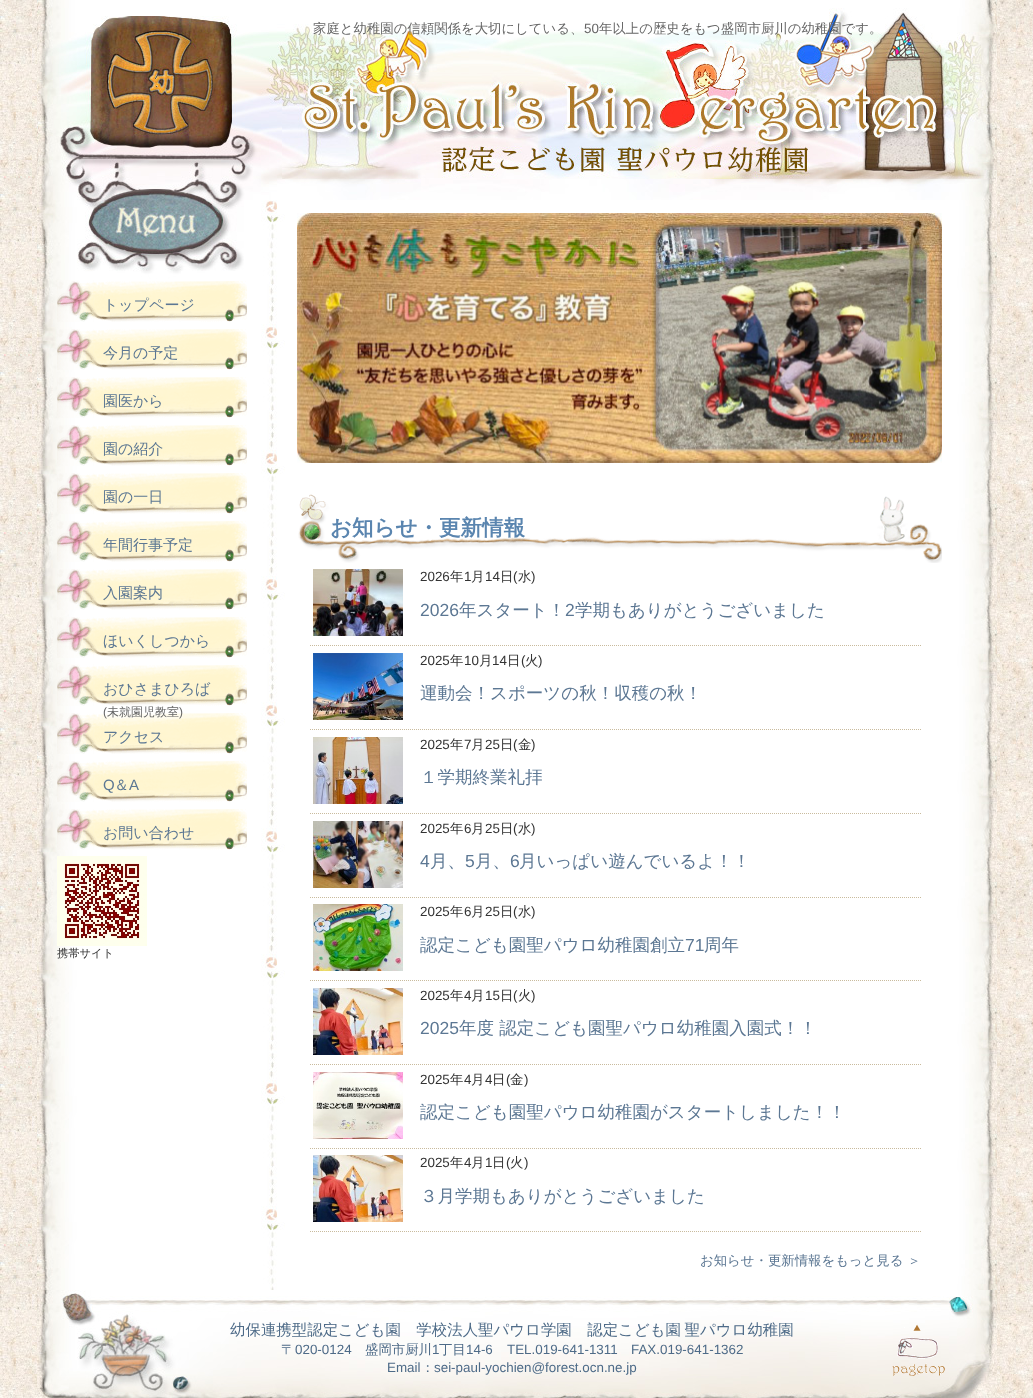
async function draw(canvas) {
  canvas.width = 1033
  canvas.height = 1398
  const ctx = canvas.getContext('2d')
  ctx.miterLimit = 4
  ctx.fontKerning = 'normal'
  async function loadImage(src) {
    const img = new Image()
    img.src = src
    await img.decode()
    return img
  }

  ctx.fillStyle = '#fff'
  ctx.fillRect(0, 0, 1033, 1398)
  ctx.drawImage(await loadImage('image0.png'), 0, 0, 1033, 1398)
  ctx.drawImage(await loadImage('image1.png'), 37, 0, 960, 1290)
  ctx.drawImage(await loadImage('image2.png'), 38, 0, 958, 200)
  ctx.font = '500 13.4px WenQuanYi Zen Hei'
  ctx.fillStyle = '#666'
  ctx.fillText('家庭と幼稚園の信頼関係を大切にしている、', 313, 33)
  ctx.font = '13.4px Liberation Sans'
  ctx.fillText('50', 584, 33)
  ctx.font = '500 13.4px WenQuanYi Zen Hei'
  ctx.fillText('年以上の歴史をもつ盛岡市厨川の幼稚園です。', 599, 33)
  ctx.drawImage(await loadImage('image3.png'), 282, 74, 715, 105)
  ctx.drawImage(await loadImage('image4.png'), 37, 200, 207, 141)
  ctx.drawImage(await loadImage('image5.png'), 57, 280, 190, 42)
  ctx.font = '500 15px WenQuanYi Zen Hei'
  ctx.fillStyle = '#5c7793'
  ctx.fillText('トップページ', 103, 310)
  ctx.drawImage(await loadImage('image6.png'), 57, 329, 190, 41)
  ctx.fillText('今月の予定', 103, 358)
  ctx.drawImage(await loadImage('image6.png'), 57, 377, 190, 41)
  ctx.fillText('園医から', 103, 406)
  ctx.drawImage(await loadImage('image6.png'), 57, 425, 190, 41)
  ctx.fillText('園の紹介', 103, 454)
  ctx.drawImage(await loadImage('image6.png'), 57, 473, 190, 41)
  ctx.fillText('園の一日', 103, 502)
  ctx.drawImage(await loadImage('image6.png'), 57, 521, 190, 41)
  ctx.fillText('年間行事予定', 103, 550)
  ctx.drawImage(await loadImage('image6.png'), 57, 569, 190, 41)
  ctx.fillText('入園案内', 103, 598)
  ctx.drawImage(await loadImage('image6.png'), 57, 617, 190, 41)
  ctx.fillText('ほいくしつから', 103, 646)
  ctx.drawImage(await loadImage('image5.png'), 57, 664, 190, 42)
  ctx.fillText('おひさまひろば', 103, 694)
  ctx.drawImage(await loadImage('image6.png'), 57, 713, 190, 41)
  ctx.font = '12px Liberation Sans'
  ctx.fillStyle = '#666'
  ctx.fillText('(', 103, 716)
  ctx.font = '500 12px WenQuanYi Zen Hei'
  ctx.fillText('未就園児教室', 107, 716)
  ctx.font = '12px Liberation Sans'
  ctx.fillText(')', 179, 716)
  ctx.font = '500 15px WenQuanYi Zen Hei'
  ctx.fillStyle = '#5c7793'
  ctx.fillText('アクセス', 103, 742)
  ctx.drawImage(await loadImage('image6.png'), 57, 761, 190, 41)
  ctx.font = '15px Liberation Sans'
  ctx.fillText('Q', 103, 790)
  ctx.font = '500 15px WenQuanYi Zen Hei'
  ctx.fillText('＆', 114, 790)
  ctx.font = '15px Liberation Sans'
  ctx.fillText('A', 129, 790)
  ctx.drawImage(await loadImage('image6.png'), 57, 809, 190, 41)
  ctx.font = '500 15px WenQuanYi Zen Hei'
  ctx.fillText('お問い合わせ', 103, 838)
  ctx.drawImage(await loadImage('image7.png'), 57, 856, 90, 90)
  ctx.font = '500 11.25px WenQuanYi Zen Hei'
  ctx.fillStyle = '#333'
  ctx.fillText('携帯サイト', 57, 957)
  ctx.drawImage(await loadImage('image8.png'), 297, 462, 645, 1)
  ctx.drawImage(await loadImage('image9.png'), 297, 213, 645, 250)
  ctx.drawImage(await loadImage('image10.png'), 298, 494, 644, 69)
  ctx.font = 'bold 21.5px WenQuanYi Zen Hei'
  ctx.fillStyle = '#5a85af'
  ctx.fillText('お知らせ・更新情報', 330, 535)
  ctx.beginPath()
  ctx.moveTo(310, 645.5)
  ctx.lineTo(921, 645.5)
  ctx.strokeStyle = '#c9bb9d'
  ctx.setLineDash([1, 1])
  ctx.stroke()
  ctx.drawImage(await loadImage('image11.png'), 313, 569, 90, 67)
  ctx.font = '13.4px Liberation Sans'
  ctx.fillStyle = '#333'
  ctx.fillText('2026', 420, 581)
  ctx.font = '500 13.4px WenQuanYi Zen Hei'
  ctx.fillText('年', 450, 581)
  ctx.font = '13.4px Liberation Sans'
  ctx.fillText('1', 464, 581)
  ctx.font = '500 13.4px WenQuanYi Zen Hei'
  ctx.fillText('月', 471, 581)
  ctx.font = '13.4px Liberation Sans'
  ctx.fillText('14', 485, 581)
  ctx.font = '500 13.4px WenQuanYi Zen Hei'
  ctx.fillText('日', 500, 581)
  ctx.font = '13.4px Liberation Sans'
  ctx.fillText('(', 513, 581)
  ctx.font = '500 13.4px WenQuanYi Zen Hei'
  ctx.fillText('水', 518, 581)
  ctx.font = '13.4px Liberation Sans'
  ctx.fillText(')', 531, 581)
  ctx.font = '17.5px Liberation Sans'
  ctx.fillStyle = '#5c7793'
  ctx.fillText('2026', 420, 616)
  ctx.font = '500 17.5px WenQuanYi Zen Hei'
  ctx.fillText('年スタート！', 459, 616)
  ctx.font = '17.5px Liberation Sans'
  ctx.fillText('2', 565, 616)
  ctx.font = '500 17.5px WenQuanYi Zen Hei'
  ctx.fillText('学期もありがとうございました', 575, 616)
  ctx.beginPath()
  ctx.moveTo(310, 729.5)
  ctx.lineTo(921, 729.5)
  ctx.stroke()
  ctx.drawImage(await loadImage('image12.png'), 313, 653, 90, 67)
  ctx.font = '13.4px Liberation Sans'
  ctx.fillStyle = '#333'
  ctx.fillText('2025', 420, 665)
  ctx.font = '500 13.4px WenQuanYi Zen Hei'
  ctx.fillText('年', 450, 665)
  ctx.font = '13.4px Liberation Sans'
  ctx.fillText('10', 464, 665)
  ctx.font = '500 13.4px WenQuanYi Zen Hei'
  ctx.fillText('月', 479, 665)
  ctx.font = '13.4px Liberation Sans'
  ctx.fillText('14', 492, 665)
  ctx.font = '500 13.4px WenQuanYi Zen Hei'
  ctx.fillText('日', 507, 665)
  ctx.font = '13.4px Liberation Sans'
  ctx.fillText('(', 521, 665)
  ctx.font = '500 13.4px WenQuanYi Zen Hei'
  ctx.fillText('火', 525, 665)
  ctx.font = '13.4px Liberation Sans'
  ctx.fillText(')', 538, 665)
  ctx.font = '500 17.5px WenQuanYi Zen Hei'
  ctx.fillStyle = '#5c7793'
  ctx.fillText('運動会！スポーツの秋！収穫の秋！', 420, 699)
  ctx.beginPath()
  ctx.moveTo(310, 813.5)
  ctx.lineTo(921, 813.5)
  ctx.stroke()
  ctx.drawImage(await loadImage('image13.png'), 313, 737, 90, 67)
  ctx.font = '13.4px Liberation Sans'
  ctx.fillStyle = '#333'
  ctx.fillText('2025', 420, 749)
  ctx.font = '500 13.4px WenQuanYi Zen Hei'
  ctx.fillText('年', 450, 749)
  ctx.font = '13.4px Liberation Sans'
  ctx.fillText('7', 464, 749)
  ctx.font = '500 13.4px WenQuanYi Zen Hei'
  ctx.fillText('月', 471, 749)
  ctx.font = '13.4px Liberation Sans'
  ctx.fillText('25', 485, 749)
  ctx.font = '500 13.4px WenQuanYi Zen Hei'
  ctx.fillText('日', 500, 749)
  ctx.font = '13.4px Liberation Sans'
  ctx.fillText('(', 513, 749)
  ctx.font = '500 13.4px WenQuanYi Zen Hei'
  ctx.fillText('金', 518, 749)
  ctx.font = '13.4px Liberation Sans'
  ctx.fillText(')', 531, 749)
  ctx.font = '500 17.5px WenQuanYi Zen Hei'
  ctx.fillStyle = '#5c7793'
  ctx.fillText('１学期終業礼拝', 420, 783)
  ctx.beginPath()
  ctx.moveTo(310, 897.5)
  ctx.lineTo(921, 897.5)
  ctx.stroke()
  ctx.drawImage(await loadImage('image14.png'), 313, 821, 90, 67)
  ctx.font = '13.4px Liberation Sans'
  ctx.fillStyle = '#333'
  ctx.fillText('2025', 420, 833)
  ctx.font = '500 13.4px WenQuanYi Zen Hei'
  ctx.fillText('年', 450, 833)
  ctx.font = '13.4px Liberation Sans'
  ctx.fillText('6', 464, 833)
  ctx.font = '500 13.4px WenQuanYi Zen Hei'
  ctx.fillText('月', 471, 833)
  ctx.font = '13.4px Liberation Sans'
  ctx.fillText('25', 485, 833)
  ctx.font = '500 13.4px WenQuanYi Zen Hei'
  ctx.fillText('日', 500, 833)
  ctx.font = '13.4px Liberation Sans'
  ctx.fillText('(', 513, 833)
  ctx.font = '500 13.4px WenQuanYi Zen Hei'
  ctx.fillText('水', 518, 833)
  ctx.font = '13.4px Liberation Sans'
  ctx.fillText(')', 531, 833)
  ctx.font = '17.5px Liberation Sans'
  ctx.fillStyle = '#5c7793'
  ctx.fillText('4', 420, 867)
  ctx.font = '500 17.5px WenQuanYi Zen Hei'
  ctx.fillText('月、', 430, 867)
  ctx.font = '17.5px Liberation Sans'
  ctx.fillText('5', 465, 867)
  ctx.font = '500 17.5px WenQuanYi Zen Hei'
  ctx.fillText('月、', 475, 867)
  ctx.font = '17.5px Liberation Sans'
  ctx.fillText('6', 510, 867)
  ctx.font = '500 17.5px WenQuanYi Zen Hei'
  ctx.fillText('月いっぱい遊んでいるよ！！', 519, 867)
  ctx.beginPath()
  ctx.moveTo(310, 980.5)
  ctx.lineTo(921, 980.5)
  ctx.stroke()
  ctx.drawImage(await loadImage('image15.png'), 313, 904, 90, 67)
  ctx.font = '13.4px Liberation Sans'
  ctx.fillStyle = '#333'
  ctx.fillText('2025', 420, 916)
  ctx.font = '500 13.4px WenQuanYi Zen Hei'
  ctx.fillText('年', 450, 916)
  ctx.font = '13.4px Liberation Sans'
  ctx.fillText('6', 464, 916)
  ctx.font = '500 13.4px WenQuanYi Zen Hei'
  ctx.fillText('月', 471, 916)
  ctx.font = '13.4px Liberation Sans'
  ctx.fillText('25', 485, 916)
  ctx.font = '500 13.4px WenQuanYi Zen Hei'
  ctx.fillText('日', 500, 916)
  ctx.font = '13.4px Liberation Sans'
  ctx.fillText('(', 513, 916)
  ctx.font = '500 13.4px WenQuanYi Zen Hei'
  ctx.fillText('水', 518, 916)
  ctx.font = '13.4px Liberation Sans'
  ctx.fillText(')', 531, 916)
  ctx.font = '500 17.5px WenQuanYi Zen Hei'
  ctx.fillStyle = '#5c7793'
  ctx.fillText('認定こども園聖パウロ幼稚園創立', 420, 951)
  ctx.font = '17.5px Liberation Sans'
  ctx.fillText('71', 685, 951)
  ctx.font = '500 17.5px WenQuanYi Zen Hei'
  ctx.fillText('周年', 704, 951)
  ctx.beginPath()
  ctx.moveTo(310, 1064.5)
  ctx.lineTo(921, 1064.5)
  ctx.stroke()
  ctx.drawImage(await loadImage('image16.png'), 313, 988, 90, 67)
  ctx.font = '13.4px Liberation Sans'
  ctx.fillStyle = '#333'
  ctx.fillText('2025', 420, 1000)
  ctx.font = '500 13.4px WenQuanYi Zen Hei'
  ctx.fillText('年', 450, 1000)
  ctx.font = '13.4px Liberation Sans'
  ctx.fillText('4', 464, 1000)
  ctx.font = '500 13.4px WenQuanYi Zen Hei'
  ctx.fillText('月', 471, 1000)
  ctx.font = '13.4px Liberation Sans'
  ctx.fillText('15', 485, 1000)
  ctx.font = '500 13.4px WenQuanYi Zen Hei'
  ctx.fillText('日', 500, 1000)
  ctx.font = '13.4px Liberation Sans'
  ctx.fillText('(', 513, 1000)
  ctx.font = '500 13.4px WenQuanYi Zen Hei'
  ctx.fillText('火', 518, 1000)
  ctx.font = '13.4px Liberation Sans'
  ctx.fillText(')', 531, 1000)
  ctx.font = '17.5px Liberation Sans'
  ctx.fillStyle = '#5c7793'
  ctx.fillText('2025', 420, 1034)
  ctx.font = '500 17.5px WenQuanYi Zen Hei'
  ctx.fillText('年度 認定こども園聖パウロ幼稚園入園式！！', 459, 1034)
  ctx.beginPath()
  ctx.moveTo(310, 1148.5)
  ctx.lineTo(921, 1148.5)
  ctx.stroke()
  ctx.drawImage(await loadImage('image17.png'), 313, 1072, 90, 67)
  ctx.font = '13.4px Liberation Sans'
  ctx.fillStyle = '#333'
  ctx.fillText('2025', 420, 1084)
  ctx.font = '500 13.4px WenQuanYi Zen Hei'
  ctx.fillText('年', 450, 1084)
  ctx.font = '13.4px Liberation Sans'
  ctx.fillText('4', 464, 1084)
  ctx.font = '500 13.4px WenQuanYi Zen Hei'
  ctx.fillText('月', 471, 1084)
  ctx.font = '13.4px Liberation Sans'
  ctx.fillText('4', 485, 1084)
  ctx.font = '500 13.4px WenQuanYi Zen Hei'
  ctx.fillText('日', 492, 1084)
  ctx.font = '13.4px Liberation Sans'
  ctx.fillText('(', 506, 1084)
  ctx.font = '500 13.4px WenQuanYi Zen Hei'
  ctx.fillText('金', 510, 1084)
  ctx.font = '13.4px Liberation Sans'
  ctx.fillText(')', 524, 1084)
  ctx.font = '500 17.5px WenQuanYi Zen Hei'
  ctx.fillStyle = '#5c7793'
  ctx.fillText('認定こども園聖パウロ幼稚園がスタートしました！！', 420, 1118)
  ctx.beginPath()
  ctx.moveTo(310, 1231.5)
  ctx.lineTo(921, 1231.5)
  ctx.stroke()
  ctx.drawImage(await loadImage('image16.png'), 313, 1155, 90, 67)
  ctx.font = '13.4px Liberation Sans'
  ctx.fillStyle = '#333'
  ctx.fillText('2025', 420, 1167)
  ctx.font = '500 13.4px WenQuanYi Zen Hei'
  ctx.fillText('年', 450, 1167)
  ctx.font = '13.4px Liberation Sans'
  ctx.fillText('4', 464, 1167)
  ctx.font = '500 13.4px WenQuanYi Zen Hei'
  ctx.fillText('月', 471, 1167)
  ctx.font = '13.4px Liberation Sans'
  ctx.fillText('1', 485, 1167)
  ctx.font = '500 13.4px WenQuanYi Zen Hei'
  ctx.fillText('日', 492, 1167)
  ctx.font = '13.4px Liberation Sans'
  ctx.fillText('(', 506, 1167)
  ctx.font = '500 13.4px WenQuanYi Zen Hei'
  ctx.fillText('火', 510, 1167)
  ctx.font = '13.4px Liberation Sans'
  ctx.fillText(')', 524, 1167)
  ctx.font = '500 17.5px WenQuanYi Zen Hei'
  ctx.fillStyle = '#5c7793'
  ctx.fillText('３月学期もありがとうございました', 420, 1202)
  ctx.font = '500 13.4px WenQuanYi Zen Hei'
  ctx.fillText('お知らせ・更新情報をもっと見る ＞', 700, 1265)
  ctx.drawImage(await loadImage('image18.png'), 37, 1290, 960, 108)
  ctx.wordSpacing = '-1px'
  ctx.font = '500 15.45px WenQuanYi Zen Hei'
  ctx.fillStyle = '#4e6b88'
  ctx.fillText('幼保連携型認定こども園　学校法人聖パウロ学園　認定こども園 聖パウロ幼稚園', 230, 1335)
  ctx.wordSpacing = '0px'
  ctx.font = '500 13.4px WenQuanYi Zen Hei'
  ctx.fillText('〒', 281, 1354)
  ctx.font = '13.4px Liberation Sans'
  ctx.fillText('020-0124', 295, 1354)
  ctx.font = '500 13.4px WenQuanYi Zen Hei'
  ctx.fillText('盛岡市厨川', 365, 1354)
  ctx.font = '13.4px Liberation Sans'
  ctx.fillText('1', 432, 1354)
  ctx.font = '500 13.4px WenQuanYi Zen Hei'
  ctx.fillText('丁目', 439, 1354)
  ctx.font = '13.4px Liberation Sans'
  ctx.fillText('14-6', 466, 1354)
  ctx.fillText('TEL.019-641-1311', 507, 1354)
  ctx.fillText('FAX.019-641-1362', 631, 1354)
  ctx.fillText('Email', 387, 1372)
  ctx.font = '500 13.4px WenQuanYi Zen Hei'
  ctx.fillText('：', 421, 1372)
  ctx.font = '13.4px Liberation Sans'
  ctx.fillText('sei-paul-yochien@forest.ocn.ne.jp', 434, 1372)
  ctx.drawImage(await loadImage('image19.png'), 892, 1324, 53, 52)
}

draw(document.querySelector('canvas'))
